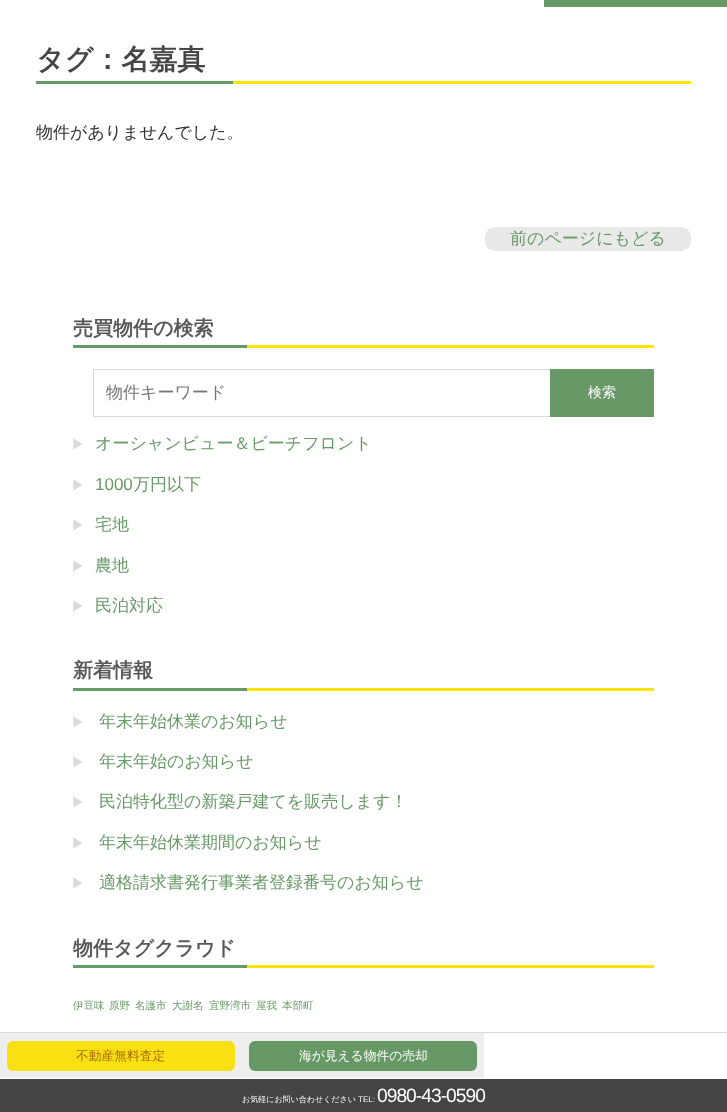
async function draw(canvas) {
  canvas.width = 727
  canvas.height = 1112
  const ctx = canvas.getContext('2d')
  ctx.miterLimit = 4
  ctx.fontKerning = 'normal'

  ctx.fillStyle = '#fff'
  ctx.fillRect(0, 0, 727, 1112)
  ctx.fillStyle = '#ffe500'
  ctx.fillRect(233, 81, 458, 3)
  ctx.font = 'bold 28px WenQuanYi Zen Hei'
  ctx.fillStyle = '#464646'
  ctx.fillText('タグ：名嘉真', 36, 69)
  ctx.fillStyle = '#679966'
  ctx.fillRect(36, 81, 197, 3)
  ctx.font = '500 17px WenQuanYi Zen Hei'
  ctx.fillStyle = '#303030'
  ctx.fillText('物件がありませんでした。', 36, 138)
  ctx.fillStyle = '#e9e9e9'
  ctx.beginPath()
  ctx.roundRect(485, 227, 206, 24, 10)
  ctx.fill()
  ctx.fillStyle = '#679966'
  ctx.fillText('前のページにもどる', 510, 244)
  ctx.fillStyle = '#ffe500'
  ctx.fillRect(247, 345, 407, 3)
  ctx.font = 'bold 20px WenQuanYi Zen Hei'
  ctx.fillStyle = '#585858'
  ctx.fillText('売買物件の検索', 73, 335)
  ctx.fillStyle = '#679966'
  ctx.fillRect(73, 345, 174, 3)
  ctx.save()
  ctx.beginPath()
  ctx.rect(73, 369, 581, 48)
  ctx.clip()
  ctx.strokeStyle = '#d9d9d9'
  ctx.strokeRect(93.5, 369.5, 580, 47)
  ctx.restore()
  ctx.save()
  ctx.beginPath()
  ctx.rect(106, 381, 538, 23)
  ctx.clip()
  ctx.font = '500 17px WenQuanYi Zen Hei'
  ctx.fillStyle = '#757575'
  ctx.fillText('物件キーワード', 106, 398)
  ctx.restore()
  ctx.fillStyle = '#679866'
  ctx.fillRect(550, 369, 104, 48)
  ctx.font = '500 14px WenQuanYi Zen Hei'
  ctx.fillStyle = '#fff'
  ctx.fillText('検索', 588, 397)
  ctx.fillStyle = '#dadada'
  ctx.fillText('▶', 71, 449)
  ctx.font = '500 17px WenQuanYi Zen Hei'
  ctx.fillStyle = '#679966'
  ctx.fillText('オーシャンビュー＆ビーチフロント', 95, 449)
  ctx.font = '500 14px WenQuanYi Zen Hei'
  ctx.fillStyle = '#dadada'
  ctx.fillText('▶', 71, 490)
  ctx.font = '17px Liberation Sans'
  ctx.fillStyle = '#679966'
  ctx.fillText('1000', 95, 490)
  ctx.font = '500 17px WenQuanYi Zen Hei'
  ctx.fillText('万円以下', 133, 490)
  ctx.font = '500 14px WenQuanYi Zen Hei'
  ctx.fillStyle = '#dadada'
  ctx.fillText('▶', 71, 530)
  ctx.font = '500 17px WenQuanYi Zen Hei'
  ctx.fillStyle = '#679966'
  ctx.fillText('宅地', 95, 530)
  ctx.font = '500 14px WenQuanYi Zen Hei'
  ctx.fillStyle = '#dadada'
  ctx.fillText('▶', 71, 571)
  ctx.font = '500 17px WenQuanYi Zen Hei'
  ctx.fillStyle = '#679966'
  ctx.fillText('農地', 95, 571)
  ctx.font = '500 14px WenQuanYi Zen Hei'
  ctx.fillStyle = '#dadada'
  ctx.fillText('▶', 71, 611)
  ctx.font = '500 17px WenQuanYi Zen Hei'
  ctx.fillStyle = '#679966'
  ctx.fillText('民泊対応', 95, 611)
  ctx.fillStyle = '#ffe500'
  ctx.fillRect(247, 688, 407, 3)
  ctx.font = 'bold 20px WenQuanYi Zen Hei'
  ctx.fillStyle = '#585858'
  ctx.fillText('新着情報', 73, 677)
  ctx.fillStyle = '#679966'
  ctx.fillRect(73, 688, 174, 3)
  ctx.font = '500 14px WenQuanYi Zen Hei'
  ctx.fillStyle = '#dadada'
  ctx.fillText('▶', 71, 727)
  ctx.font = '500 17px WenQuanYi Zen Hei'
  ctx.fillStyle = '#679966'
  ctx.fillText('年末年始休業のお知らせ', 99, 727)
  ctx.font = '500 14px WenQuanYi Zen Hei'
  ctx.fillStyle = '#dadada'
  ctx.fillText('▶', 71, 767)
  ctx.font = '500 17px WenQuanYi Zen Hei'
  ctx.fillStyle = '#679966'
  ctx.fillText('年末年始のお知らせ', 99, 767)
  ctx.font = '500 14px WenQuanYi Zen Hei'
  ctx.fillStyle = '#dadada'
  ctx.fillText('▶', 71, 807)
  ctx.font = '500 17px WenQuanYi Zen Hei'
  ctx.fillStyle = '#679966'
  ctx.fillText('民泊特化型の新築戸建てを販売します！', 99, 807)
  ctx.font = '500 14px WenQuanYi Zen Hei'
  ctx.fillStyle = '#dadada'
  ctx.fillText('▶', 71, 848)
  ctx.font = '500 17px WenQuanYi Zen Hei'
  ctx.fillStyle = '#679966'
  ctx.fillText('年末年始休業期間のお知らせ', 99, 848)
  ctx.font = '500 14px WenQuanYi Zen Hei'
  ctx.fillStyle = '#dadada'
  ctx.fillText('▶', 71, 888)
  ctx.font = '500 17px WenQuanYi Zen Hei'
  ctx.fillStyle = '#679966'
  ctx.fillText('適格請求書発行事業者登録番号のお知らせ', 99, 888)
  ctx.fillStyle = '#ffe500'
  ctx.fillRect(247, 965, 407, 3)
  ctx.font = 'bold 20px WenQuanYi Zen Hei'
  ctx.fillStyle = '#585858'
  ctx.fillText('物件タグクラウド', 73, 955)
  ctx.fillStyle = '#679966'
  ctx.fillRect(73, 965, 174, 3)
  ctx.font = '500 10.5px WenQuanYi Zen Hei'
  ctx.fillText('伊豆味', 73, 1009)
  ctx.fillText('原野', 109, 1009)
  ctx.fillText('名護市', 135, 1009)
  ctx.fillText('大謝名', 172, 1009)
  ctx.fillText('宜野湾市', 209, 1009)
  ctx.fillText('屋我', 256, 1009)
  ctx.fillText('本部町', 282, 1009)
  ctx.fillRect(544, 0, 183, 7)
  ctx.fillStyle = '#d9d9d9'
  ctx.fillRect(0, 1032, 727, 1)
  ctx.fillStyle = '#eee'
  ctx.fillRect(0, 1033, 484, 45)
  ctx.fillStyle = '#f8e012'
  ctx.beginPath()
  ctx.roundRect(7, 1041, 228, 30, 6)
  ctx.fill()
  ctx.font = '500 12.75px WenQuanYi Zen Hei'
  ctx.fillStyle = '#a96c10'
  ctx.fillText('不動産無料査定', 76, 1060)
  ctx.fillStyle = '#679966'
  ctx.beginPath()
  ctx.roundRect(249, 1041, 228, 30, 6)
  ctx.fill()
  ctx.fillStyle = '#fff'
  ctx.fillText('海が見える物件の売却', 299, 1060)
  ctx.fillStyle = '#444'
  ctx.fillRect(0, 1079, 727, 33)
  ctx.font = '500 8px WenQuanYi Zen Hei'
  ctx.fillStyle = '#fff'
  ctx.fillText('お気軽にお問い合わせください', 242, 1102)
  ctx.font = '8px Liberation Sans'
  ctx.fillText('TEL:', 358, 1102)
  ctx.letterSpacing = '-1px'
  ctx.font = '19.25px Liberation Sans'
  ctx.fillText('0980-43-0590', 377, 1102)
}

draw(document.querySelector('canvas'))
